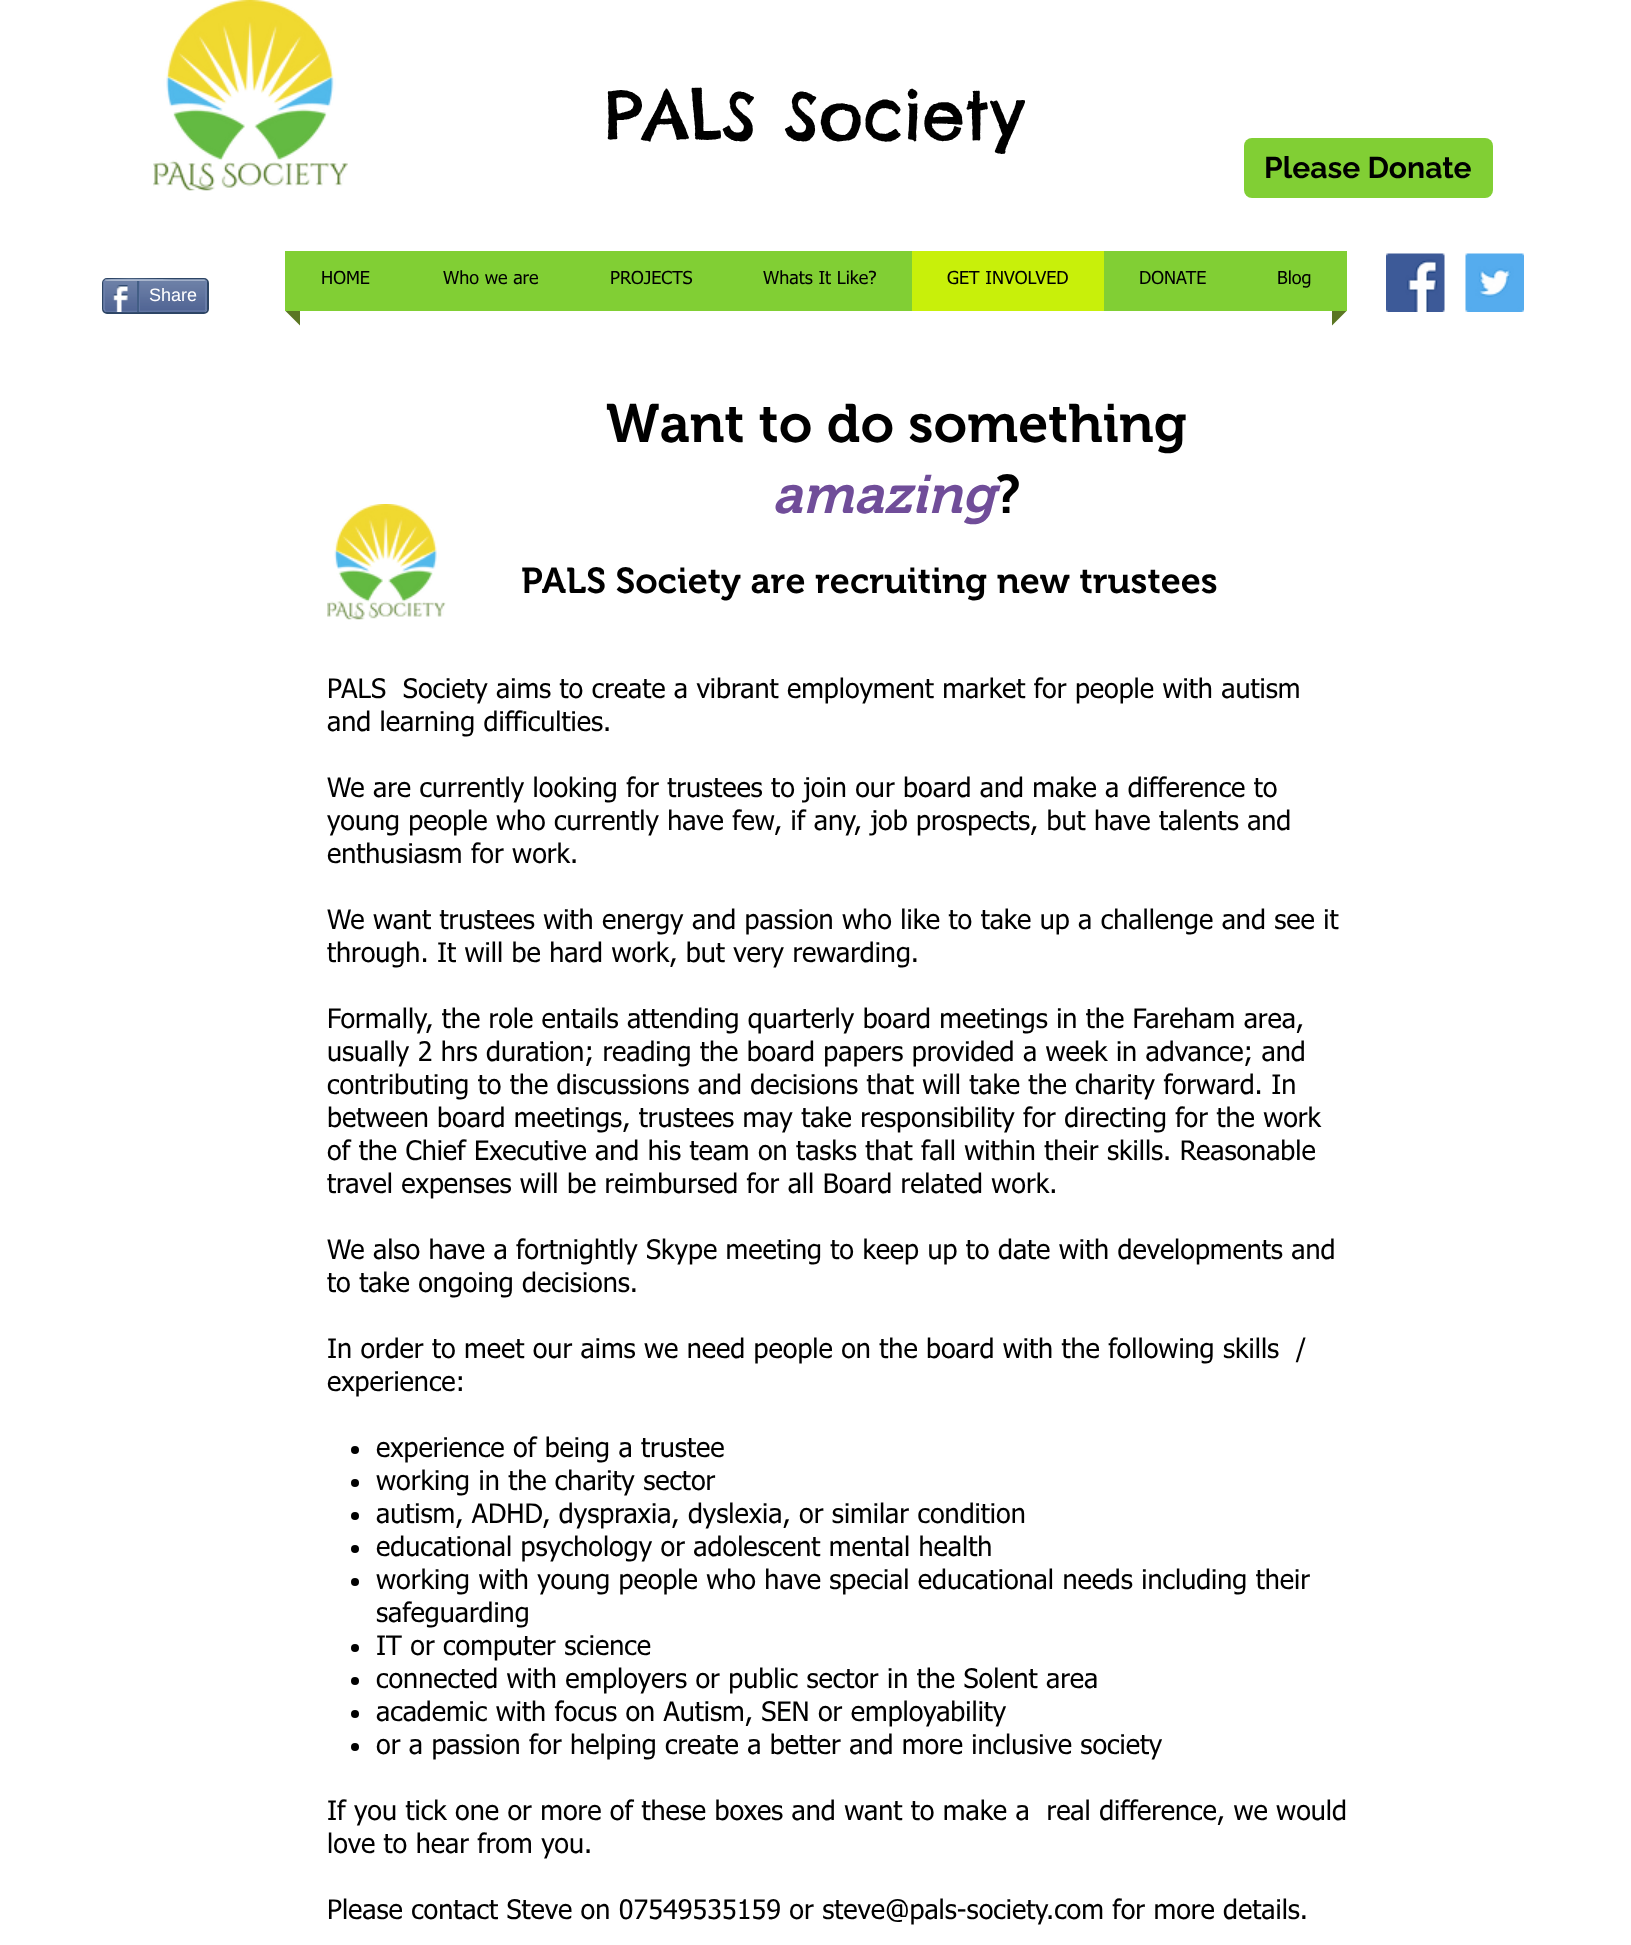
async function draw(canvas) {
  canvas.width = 1631
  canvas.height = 1945
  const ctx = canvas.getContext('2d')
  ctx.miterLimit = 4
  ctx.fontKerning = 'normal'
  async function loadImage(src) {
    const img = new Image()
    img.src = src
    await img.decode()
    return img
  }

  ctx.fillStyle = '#fff'
  ctx.fillRect(0, 0, 1631, 1945)
  ctx.drawImage(await loadImage('image0.png'), 153, 0, 195, 191)
  ctx.font = '67.5px Chelsea Market'
  ctx.fillStyle = '#000'
  ctx.fillText('PALS Society', 605, 140)
  ctx.fillStyle = '#81cf34'
  ctx.beginPath()
  ctx.roundRect(1244, 138, 249, 60, 8)
  ctx.fill()
  ctx.font = 'bold 30px Raleway'
  ctx.fillStyle = '#000'
  ctx.fillText('Please Donate', 1264, 178)
  ctx.fillStyle = '#5b7623'
  ctx.beginPath()
  ctx.moveTo(285, 310.5)
  ctx.lineTo(300, 310.5)
  ctx.lineTo(300, 325.5)
  ctx.closePath()
  ctx.fill()
  ctx.beginPath()
  ctx.moveTo(1332, 310.5)
  ctx.lineTo(1347, 310.5)
  ctx.lineTo(1332, 325.5)
  ctx.closePath()
  ctx.fill()
  ctx.fillStyle = '#81cf34'
  ctx.fillRect(285, 251, 1062, 60)
  ctx.font = '18px tahoma'
  ctx.fillStyle = '#000'
  ctx.fillText('HOME', 321, 284)
  ctx.fillText('Who we are', 443, 284)
  ctx.fillText('PROJECTS', 610, 284)
  ctx.fillText('Whats It Like?', 763, 284)
  ctx.fillStyle = '#c8f00a'
  ctx.fillRect(912, 251, 192, 60)
  ctx.fillStyle = '#000'
  ctx.fillText('GET INVOLVED', 947, 284)
  ctx.fillText('DONATE', 1139, 284)
  ctx.fillText('Blog', 1277, 284)
  ctx.drawImage(await loadImage('image1.png'), 1386, 253, 59, 59)
  ctx.drawImage(await loadImage('image2.png'), 1465, 253, 59, 59)
  ctx.beginPath()
  ctx.roundRect(103, 279, 105, 34, 4)
  ctx.strokeStyle = '#2d4565'
  ctx.lineWidth = 2
  ctx.stroke()
  ctx.drawImage(await loadImage('image3.png'), 103, 280, 104, 32)
  ctx.beginPath()
  ctx.moveTo(105, 280.5)
  ctx.lineTo(105.5, 280)
  ctx.bezierCurveTo(107, 279, 179.5, 280, 188, 280)
  ctx.lineTo(204, 280)
  ctx.lineTo(205.5, 280.5)
  ctx.strokeStyle = '#9aabc6'
  ctx.lineWidth = 1.5
  ctx.stroke()
  ctx.beginPath()
  ctx.moveTo(205.5, 280.5)
  ctx.bezierCurveTo(206, 281, 206, 281.5, 206, 282)
  ctx.lineTo(206, 309)
  ctx.bezierCurveTo(206, 309.5, 206, 310, 205.5, 310.5)
  ctx.strokeStyle = '#6f83ad'
  ctx.stroke()
  ctx.beginPath()
  ctx.moveTo(205.5, 310.5)
  ctx.lineTo(204, 311)
  ctx.lineTo(188, 311)
  ctx.bezierCurveTo(179.5, 311, 107, 312, 105.5, 311)
  ctx.lineTo(105, 310.5)
  ctx.strokeStyle = '#6176a3'
  ctx.stroke()
  ctx.beginPath()
  ctx.moveTo(105, 310.5)
  ctx.bezierCurveTo(104.5, 310, 104, 309.5, 104, 309)
  ctx.lineTo(104, 282)
  ctx.bezierCurveTo(104, 281.5, 104.5, 281, 105, 280.5)
  ctx.strokeStyle = '#6f83ad'
  ctx.stroke()
  ctx.drawImage(await loadImage('image4.png'), 112, 285, 16, 27)
  ctx.fillStyle = '#425e85'
  ctx.fillRect(137, 281, 2, 31)
  ctx.font = '18px Liberation Sans'
  ctx.fillStyle = '#fff'
  ctx.fillText('Share', 149, 301)
  ctx.fillStyle = '#6176a3'
  ctx.fillRect(139, 281, 1, 30)
  ctx.font = '600 54px "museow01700"'
  ctx.fillStyle = '#000'
  ctx.fillText('Want to do something', 606, 442)
  ctx.font = 'italic 600 54px "museow01700"'
  ctx.fillStyle = '#704d99'
  ctx.fillText('amazing', 772, 513)
  ctx.font = '600 54px "museow01700"'
  ctx.fillStyle = '#000'
  ctx.fillText('?', 995, 513)
  ctx.drawImage(await loadImage('image5.png'), 327, 504, 119, 116)
  ctx.font = '600 36px "museow01700"'
  ctx.fillText('PALS Society are recruiting new trustees', 521, 593)
  ctx.font = '27px tahoma'
  ctx.fillText('PALS  Society aims to create a vibrant employment market for people with autism', 327, 698)
  ctx.fillText('and learning difficulties.', 327, 731)
  ctx.fillText('We are currently looking for trustees to join our board and make a difference to', 327, 797)
  ctx.fillText('young people who currently have few, if any, job prospects, but have talents and', 327, 830)
  ctx.fillText('enthusiasm for work.', 327, 863)
  ctx.fillText('We want trustees with energy and passion who like to take up a challenge and see it', 327, 929)
  ctx.fillText('through. It will be hard work, but very rewarding.', 327, 962)
  ctx.fillText('Formally, the role entails attending quarterly board meetings in the Fareham area,', 327, 1028)
  ctx.fillText('usually 2 hrs duration; reading the board papers provided a week in advance; and', 327, 1061)
  ctx.fillText('contributing to the discussions and decisions that will take the charity forward. In', 327, 1094)
  ctx.fillText('between board meetings, trustees may take responsibility for directing for the work', 327, 1127)
  ctx.fillText('of the Chief Executive and his team on tasks that fall within their skills. Reasonable', 327, 1160)
  ctx.fillText('travel expenses will be reimbursed for all Board related work.', 327, 1193)
  ctx.fillText('We also have a fortnightly Skype meeting to keep up to date with developments and', 327, 1259)
  ctx.fillText('to take ongoing decisions.', 327, 1292)
  ctx.fillText('In order to meet our aims we need people on the board with the following skills  /', 327, 1358)
  ctx.fillText('experience:', 327, 1391)
  ctx.beginPath()
  ctx.arc(355, 1450, 4, 0, 2 * Math.PI)
  ctx.fill()
  ctx.fillText('experience of being a trustee', 376, 1457)
  ctx.beginPath()
  ctx.arc(355, 1483, 4, 0, 2 * Math.PI)
  ctx.fill()
  ctx.fillText('working in the charity sector', 376, 1490)
  ctx.beginPath()
  ctx.arc(355, 1516, 4, 0, 2 * Math.PI)
  ctx.fill()
  ctx.fillText('autism, ADHD, dyspraxia, dyslexia, or similar condition', 376, 1523)
  ctx.beginPath()
  ctx.arc(355, 1549, 4, 0, 2 * Math.PI)
  ctx.fill()
  ctx.fillText('educational psychology or adolescent mental health', 376, 1556)
  ctx.beginPath()
  ctx.arc(355, 1582, 4, 0, 2 * Math.PI)
  ctx.fill()
  ctx.fillText('working with young people who have special educational needs including their', 376, 1589)
  ctx.fillText('safeguarding', 376, 1622)
  ctx.beginPath()
  ctx.arc(355, 1648, 4, 0, 2 * Math.PI)
  ctx.fill()
  ctx.fillText('IT or computer science', 376, 1655)
  ctx.beginPath()
  ctx.arc(355, 1681, 4, 0, 2 * Math.PI)
  ctx.fill()
  ctx.fillText('connected with employers or public sector in the Solent area', 376, 1688)
  ctx.beginPath()
  ctx.arc(355, 1714, 4, 0, 2 * Math.PI)
  ctx.fill()
  ctx.fillText('academic with focus on Autism, SEN or employability', 376, 1721)
  ctx.beginPath()
  ctx.arc(355, 1747, 4, 0, 2 * Math.PI)
  ctx.fill()
  ctx.fillText('or a passion for helping create a better and more inclusive society', 376, 1754)
  ctx.fillText('If you tick one or more of these boxes and want to make a  real difference, we would', 327, 1820)
  ctx.fillText('love to hear from you.', 327, 1853)
  ctx.fillText('Please contact Steve on 07549535159 or steve@pals-society.com for more details.', 327, 1919)
}

draw(document.querySelector('canvas'))
